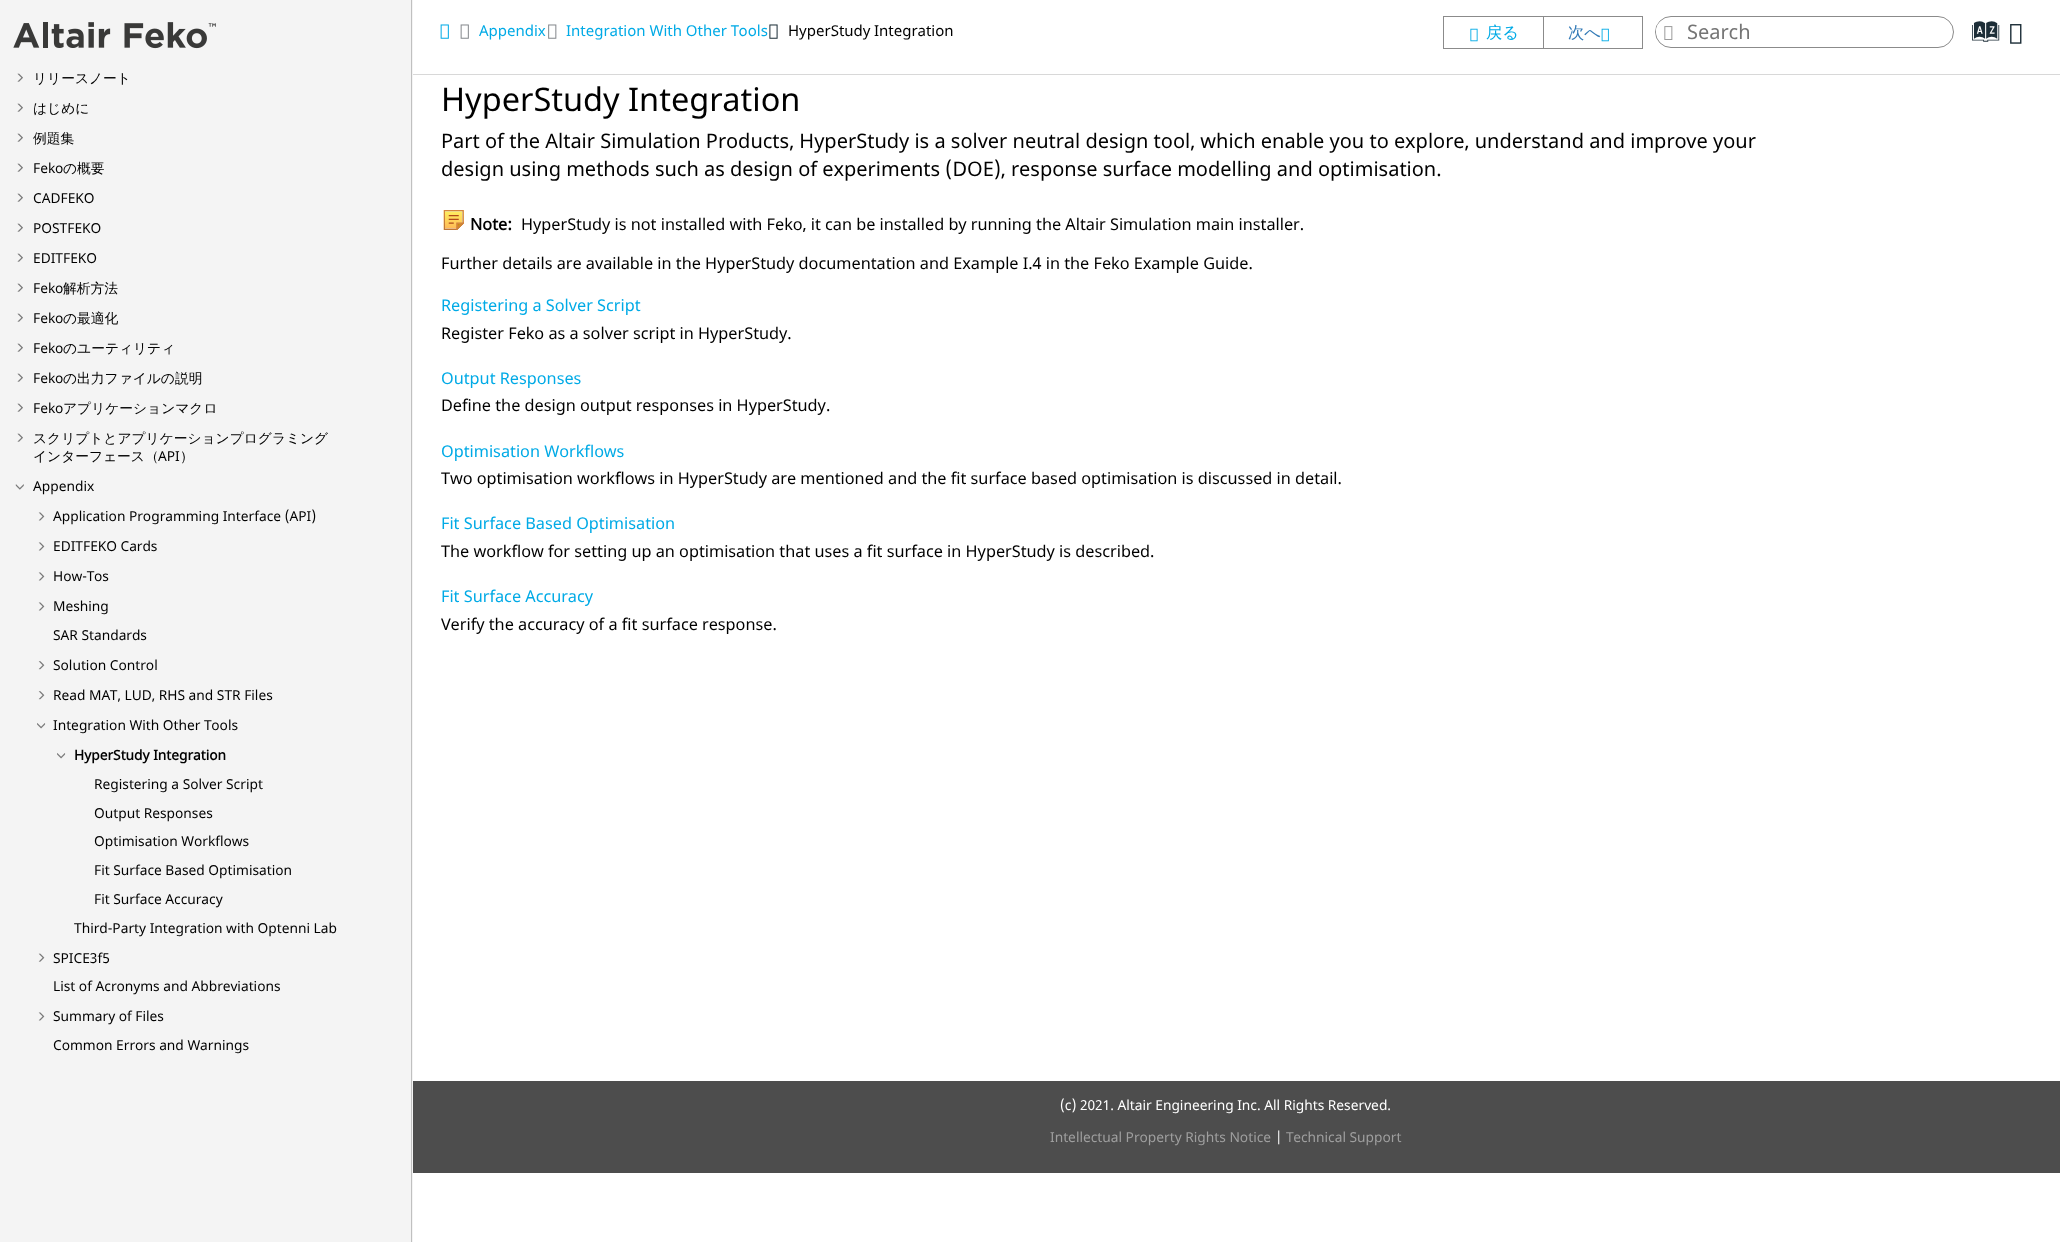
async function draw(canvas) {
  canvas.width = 2060
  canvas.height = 1242
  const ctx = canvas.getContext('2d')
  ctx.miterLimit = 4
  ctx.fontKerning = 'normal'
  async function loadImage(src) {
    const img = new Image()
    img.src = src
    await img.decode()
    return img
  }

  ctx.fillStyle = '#fff'
  ctx.fillRect(0, 0, 2060, 1242)
  ctx.fillStyle = '#f4f4f4'
  ctx.fillRect(0, 0, 413, 1242)
  ctx.fillStyle = '#c0c0c0'
  ctx.fillRect(411, 0, 1, 1242)
  ctx.drawImage(await loadImage('image0.png'), 13, 22, 203, 27)
  ctx.drawImage(await loadImage('image1.png'), 17, 73, 6, 9)
  ctx.font = '500 13.75px WenQuanYi Zen Hei'
  ctx.fillStyle = '#000'
  ctx.fillText('リリースノート', 33, 83)
  ctx.drawImage(await loadImage('image1.png'), 17, 103, 6, 9)
  ctx.fillText('はじめに', 33, 113)
  ctx.drawImage(await loadImage('image1.png'), 17, 133, 6, 9)
  ctx.fillText('例題集', 33, 143)
  ctx.drawImage(await loadImage('image1.png'), 17, 163, 6, 9)
  ctx.font = '13.75px Noto Sans'
  ctx.fillText('Feko', 33, 173)
  ctx.font = '500 13.75px WenQuanYi Zen Hei'
  ctx.fillText('の概要', 63, 173)
  ctx.drawImage(await loadImage('image1.png'), 17, 193, 6, 9)
  ctx.font = '13.75px Noto Sans'
  ctx.fillText('CADFEKO', 33, 203)
  ctx.drawImage(await loadImage('image1.png'), 17, 223, 6, 9)
  ctx.fillText('POSTFEKO', 33, 233)
  ctx.drawImage(await loadImage('image1.png'), 17, 253, 6, 9)
  ctx.fillText('EDITFEKO', 33, 263)
  ctx.drawImage(await loadImage('image1.png'), 17, 283, 6, 9)
  ctx.fillText('Feko', 33, 293)
  ctx.font = '500 13.75px WenQuanYi Zen Hei'
  ctx.fillText('解析方法', 63, 293)
  ctx.drawImage(await loadImage('image1.png'), 17, 313, 6, 9)
  ctx.font = '13.75px Noto Sans'
  ctx.fillText('Feko', 33, 323)
  ctx.font = '500 13.75px WenQuanYi Zen Hei'
  ctx.fillText('の最適化', 63, 323)
  ctx.drawImage(await loadImage('image1.png'), 17, 343, 6, 9)
  ctx.font = '13.75px Noto Sans'
  ctx.fillText('Feko', 33, 353)
  ctx.font = '500 13.75px WenQuanYi Zen Hei'
  ctx.fillText('のユーティリティ', 63, 353)
  ctx.drawImage(await loadImage('image1.png'), 17, 373, 6, 9)
  ctx.font = '13.75px Noto Sans'
  ctx.fillText('Feko', 33, 383)
  ctx.font = '500 13.75px WenQuanYi Zen Hei'
  ctx.fillText('の出力ファイルの説明', 63, 383)
  ctx.drawImage(await loadImage('image1.png'), 17, 403, 6, 9)
  ctx.font = '13.75px Noto Sans'
  ctx.fillText('Feko', 33, 413)
  ctx.font = '500 13.75px WenQuanYi Zen Hei'
  ctx.fillText('アプリケーションマクロ', 63, 413)
  ctx.drawImage(await loadImage('image1.png'), 17, 433, 6, 9)
  ctx.fillText('スクリプトとアプリケーションプログラミング', 33, 443)
  ctx.fillText('インターフェース（', 33, 461)
  ctx.font = '13.75px Noto Sans'
  ctx.fillText('API', 158, 461)
  ctx.font = '500 13.75px WenQuanYi Zen Hei'
  ctx.fillText('）', 180, 461)
  ctx.drawImage(await loadImage('image2.png'), 15, 484, 9, 6)
  ctx.font = '13.75px Noto Sans'
  ctx.fillText('Appendix', 33, 491)
  ctx.drawImage(await loadImage('image3.png'), 38, 512, 7, 9)
  ctx.fillText('Application Programming Interface (API)', 53, 521)
  ctx.drawImage(await loadImage('image3.png'), 38, 542, 7, 9)
  ctx.fillText('EDITFEKO Cards', 53, 551)
  ctx.drawImage(await loadImage('image3.png'), 38, 572, 7, 9)
  ctx.fillText('How-Tos', 53, 581)
  ctx.drawImage(await loadImage('image3.png'), 38, 602, 7, 9)
  ctx.fillText('Meshing', 53, 611)
  ctx.fillText('SAR Standards', 53, 640)
  ctx.drawImage(await loadImage('image4.png'), 38, 661, 7, 9)
  ctx.fillText('Solution Control', 53, 670)
  ctx.drawImage(await loadImage('image4.png'), 38, 691, 7, 9)
  ctx.fillText('Read MAT, LUD, RHS and STR Files', 53, 700)
  ctx.drawImage(await loadImage('image5.png'), 37, 723, 9, 6)
  ctx.fillText('Integration With Other Tools', 53, 730)
  ctx.drawImage(await loadImage('image5.png'), 57, 753, 9, 6)
  ctx.font = 'bold 13.75px Noto Sans'
  ctx.fillText('HyperStudy Integration', 74, 760)
  ctx.font = '13.75px Noto Sans'
  ctx.fillText('Registering a Solver Script', 94, 789)
  ctx.fillText('Output Responses', 94, 818)
  ctx.fillText('Optimisation Workflows', 94, 846)
  ctx.fillText('Fit Surface Based Optimisation', 94, 875)
  ctx.fillText('Fit Surface Accuracy', 94, 904)
  ctx.fillText('Third-Party Integration with Optenni Lab', 74, 933)
  ctx.drawImage(await loadImage('image6.png'), 38, 953, 7, 9)
  ctx.fillText('SPICE3f5', 53, 963)
  ctx.fillText('List of Acronyms and Abbreviations', 53, 991)
  ctx.drawImage(await loadImage('image3.png'), 38, 1012, 7, 9)
  ctx.fillText('Summary of Files', 53, 1021)
  ctx.fillText('Common Errors and Warnings', 53, 1050)
  ctx.fillStyle = '#d8d8d8'
  ctx.fillRect(413, 74, 1647, 1)
  ctx.drawImage(await loadImage('image7.png'), 440, 24, 9, 15)
  ctx.drawImage(await loadImage('image8.png'), 460, 24, 9, 15)
  ctx.font = '15px Noto Sans'
  ctx.fillStyle = '#00aae6'
  ctx.fillText('Appendix', 479, 36)
  ctx.drawImage(await loadImage('image9.png'), 548, 24, 9, 15)
  ctx.fillText('Integration With Other Tools', 566, 36)
  ctx.drawImage(await loadImage('image10.png'), 769, 24, 9, 15)
  ctx.fillStyle = '#000'
  ctx.fillText('HyperStudy', 788, 36)
  ctx.fillText('Integration', 874, 36)
  ctx.fillStyle = '#8b8b8b'
  ctx.fillRect(1443, 16, 100, 1)
  ctx.fillRect(1443, 48, 100, 1)
  ctx.fillRect(1443, 16, 1, 33)
  ctx.drawImage(await loadImage('image11.png'), 1470, 28, 8, 14)
  ctx.font = '500 16.25px WenQuanYi Zen Hei'
  ctx.fillStyle = '#00aae6'
  ctx.fillText('戻る', 1486, 38)
  ctx.strokeStyle = '#8b8b8b'
  ctx.strokeRect(1543.5, 16.5, 99, 32)
  ctx.fillStyle = '#347bb7'
  ctx.fillText('次へ', 1568, 38)
  ctx.drawImage(await loadImage('image12.png'), 1601, 28, 8, 14)
  ctx.beginPath()
  ctx.roundRect(1655.5, 16.5, 298, 31, 15.5)
  ctx.stroke()
  ctx.fillStyle = '#fff'
  ctx.beginPath()
  ctx.roundRect(1656, 19, 25, 24, 12)
  ctx.fill()
  ctx.drawImage(await loadImage('image13.png'), 1664, 26, 9, 14)
  ctx.font = '20px Noto Sans'
  ctx.fillStyle = '#757575'
  ctx.fillText('Search', 1687, 39)
  ctx.font = '29px Oxygen'
  ctx.fillStyle = '#1d2e38'
  ctx.fillText('a', 1975, 45)
  ctx.drawImage(await loadImage('image14.png'), 2010, 24, 12, 20)
  ctx.font = '32.5px Noto Sans'
  ctx.fillStyle = '#000'
  ctx.fillText('HyperStudy Integration', 441, 111)
  ctx.font = '20px Noto Sans'
  ctx.fillText('Part of the Altair Simulation Products, HyperStudy is a solver neutral design tool, which enable you to explore, understand and improve your', 441, 148)
  ctx.fillText('design using methods such as design of experiments (DOE), response surface modelling and optimisation.', 441, 176)
  ctx.drawImage(await loadImage('image15.png'), 443, 210, 21, 20)
  ctx.font = 'bold 16.25px Noto Sans'
  ctx.fillText('Note:', 470, 230)
  ctx.font = '16.25px Noto Sans'
  ctx.fillText('HyperStudy is not installed with Feko, it can be installed by running the Altair Simulation main installer.', 521, 230)
  ctx.fillText('Further details are available in the HyperStudy documentation and Example I.4 in the Feko Example Guide.', 441, 269)
  ctx.fillStyle = '#00aae6'
  ctx.fillText('Registering a Solver Script', 441, 311)
  ctx.fillStyle = '#000'
  ctx.fillText('Register Feko as a solver script in HyperStudy.', 441, 339)
  ctx.fillStyle = '#00aae6'
  ctx.fillText('Output Responses', 441, 384)
  ctx.fillStyle = '#000'
  ctx.fillText('Define the design output responses in HyperStudy.', 441, 411)
  ctx.fillStyle = '#00aae6'
  ctx.fillText('Optimisation Workflows', 441, 457)
  ctx.fillStyle = '#000'
  ctx.fillText('Two optimisation workflows in HyperStudy are mentioned and the fit surface based optimisation is discussed in detail.', 441, 484)
  ctx.fillStyle = '#00aae6'
  ctx.fillText('Fit Surface Based Optimisation', 441, 529)
  ctx.fillStyle = '#000'
  ctx.fillText('The workflow for setting up an optimisation that uses a fit surface in HyperStudy is described.', 441, 557)
  ctx.fillStyle = '#00aae6'
  ctx.fillText('Fit Surface Accuracy', 441, 602)
  ctx.fillStyle = '#000'
  ctx.fillText('Verify the accuracy of a fit surface response.', 441, 630)
  ctx.fillStyle = '#4d4d4d'
  ctx.fillRect(413, 1081, 1647, 92)
  ctx.font = '13.75px Noto Sans'
  ctx.fillStyle = '#fff'
  ctx.fillText('(c) 2021. Altair Engineering Inc. All Rights Reserved.', 1060, 1110)
  ctx.fillStyle = '#9f9f9f'
  ctx.fillText('Intellectual Property Rights Notice', 1050, 1142)
  ctx.fillStyle = '#fff'
  ctx.fillText('|', 1275, 1142)
  ctx.fillStyle = '#9f9f9f'
  ctx.fillText('Technical Support', 1286, 1142)
}

draw(document.querySelector('canvas'))
